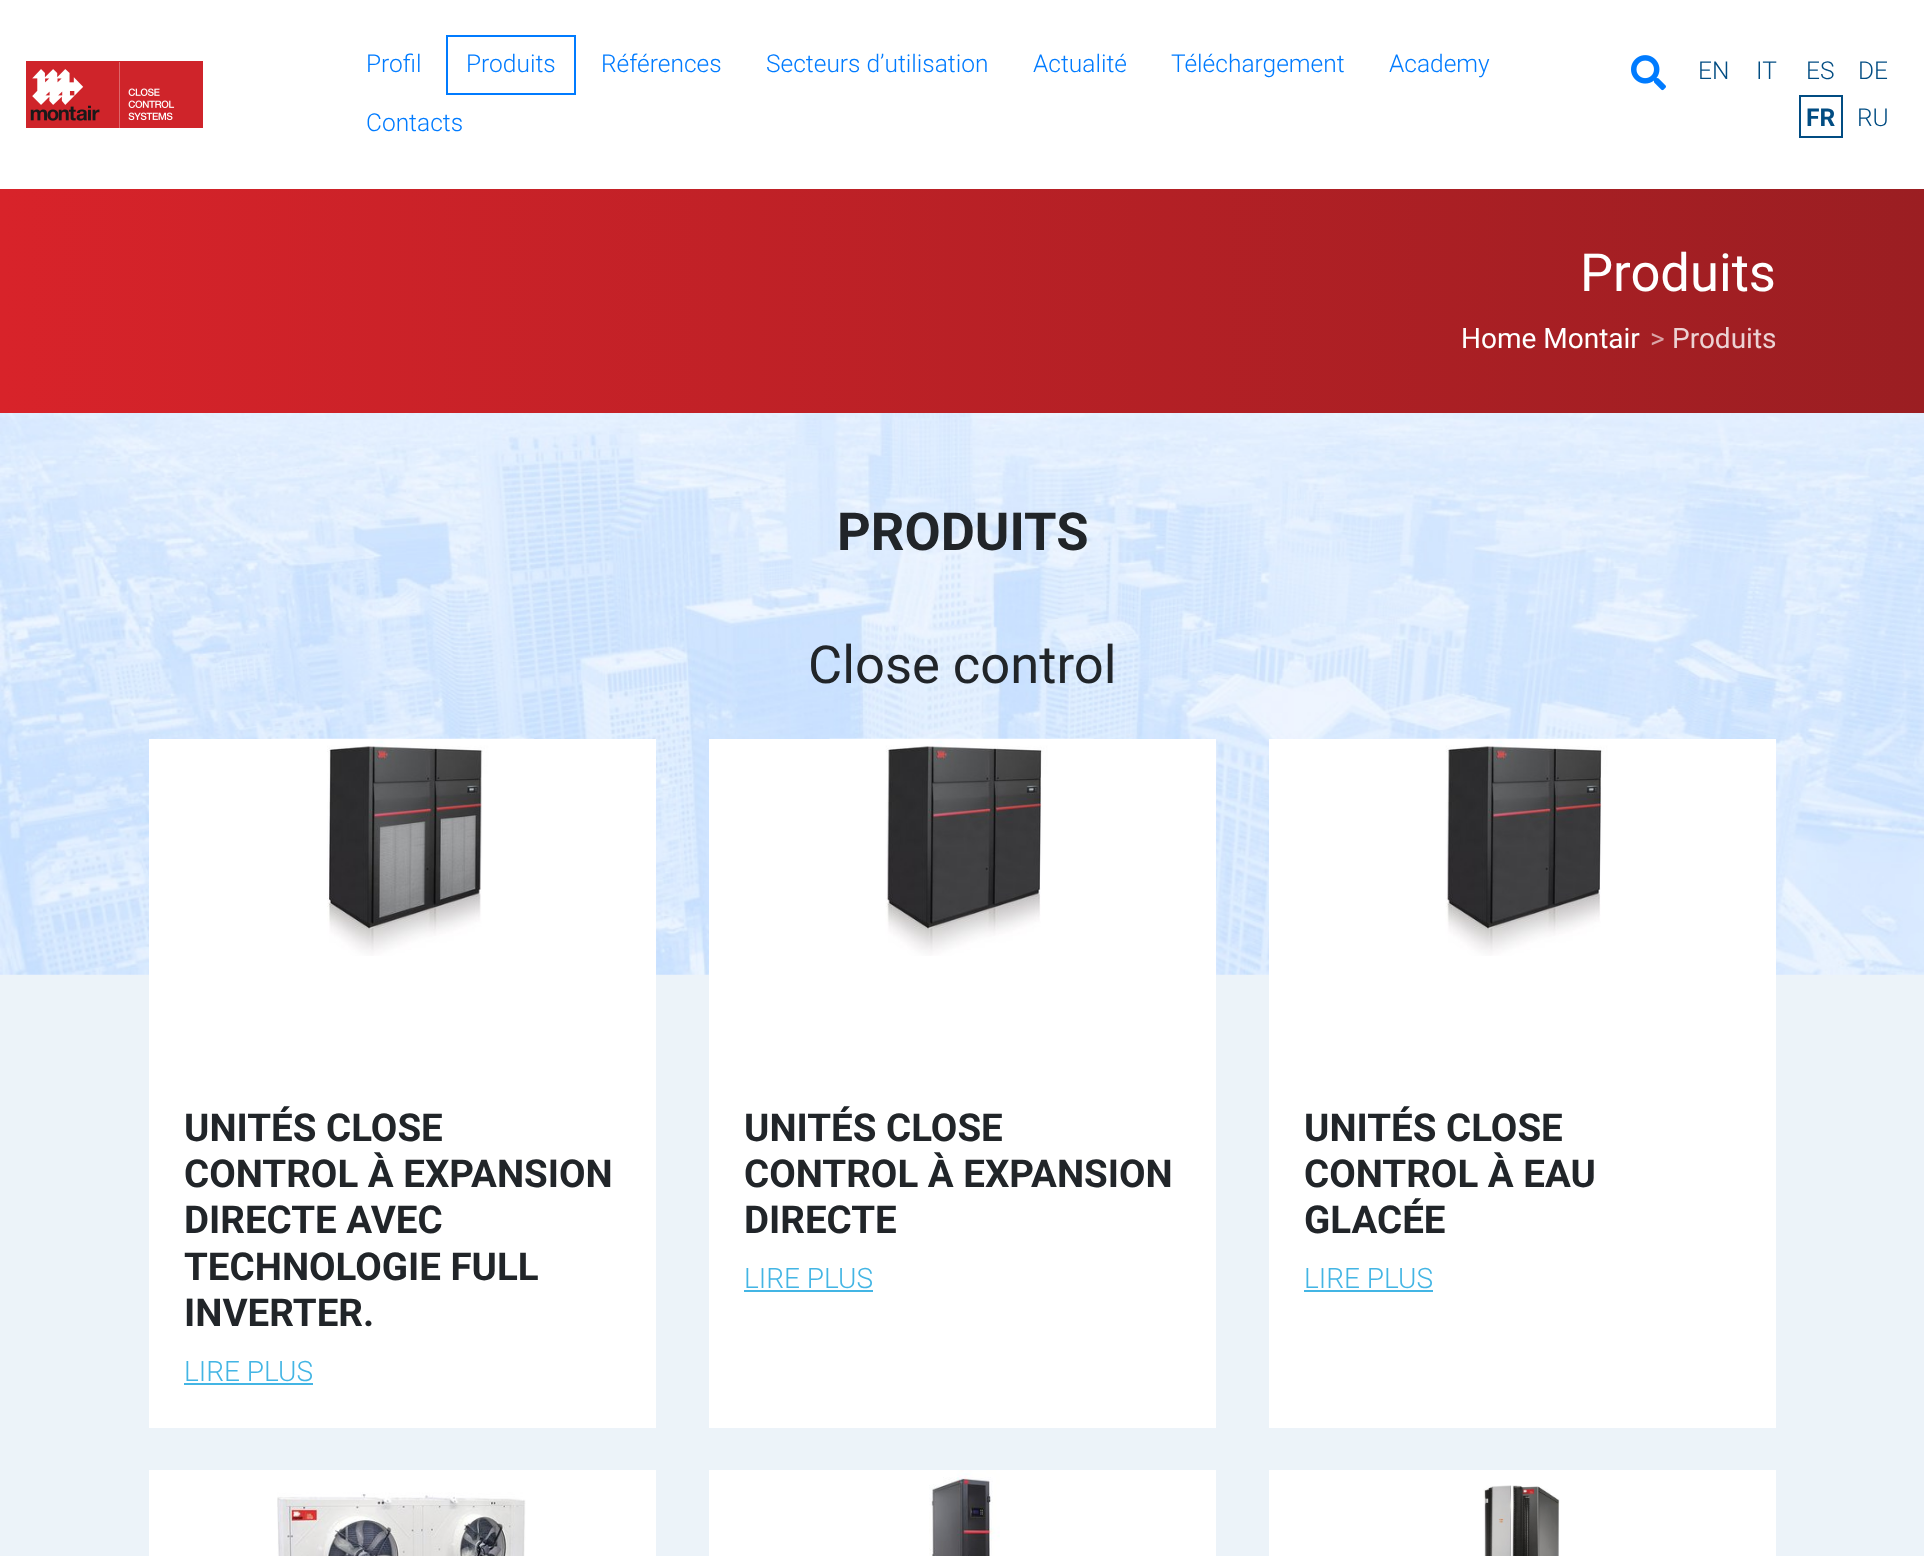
async function draw(canvas) {
  canvas.width = 1924
  canvas.height = 1556
  const ctx = canvas.getContext('2d')
  ctx.miterLimit = 4
  ctx.fontKerning = 'normal'
  async function loadImage(src) {
    const img = new Image()
    img.src = src
    await img.decode()
    return img
  }
  let gradient

  ctx.fillStyle = '#fff'
  ctx.fillRect(0, 0, 1924, 1556)
  ctx.drawImage(await loadImage('image0.png'), 26, 61, 177, 67)
  ctx.font = '300 24.5px Roboto'
  ctx.fillStyle = '#007bff'
  ctx.fillText('Profil', 366, 72)
  ctx.strokeStyle = '#007bff'
  ctx.lineWidth = 2
  ctx.strokeRect(447, 36, 128, 58)
  ctx.fillText('Produits', 466, 72)
  ctx.fillText('Références', 601, 72)
  ctx.fillText('Secteurs d’utilisation', 766, 72)
  ctx.fillText('Actualité', 1033, 72)
  ctx.fillText('Téléchargement', 1171, 72)
  ctx.fillText('Academy', 1389, 72)
  ctx.fillText('Contacts', 366, 131)
  ctx.drawImage(await loadImage('image1.png'), 1631, 55, 35, 36)
  ctx.fillStyle = '#014c82'
  ctx.fillText('EN', 1698, 79)
  ctx.fillText('IT', 1756, 79)
  ctx.fillText('ES', 1806, 79)
  ctx.fillText('DE', 1858, 79)
  ctx.strokeStyle = '#014c82'
  ctx.strokeRect(1800, 96, 42, 41)
  ctx.font = 'bold 24.5px Roboto'
  ctx.fillText('FR', 1806, 126)
  ctx.font = '300 24.5px Roboto'
  ctx.fillText('RU', 1857, 126)
  gradient = ctx.createLinearGradient(0, 301, 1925, 301)
  gradient.addColorStop(0, '#d8232a')
  gradient.addColorStop(1, '#9b1e22')
  ctx.fillStyle = gradient
  ctx.fillRect(0, 189, 1924, 224)
  ctx.font = '52.5px Roboto'
  ctx.fillStyle = '#fff'
  ctx.fillText('Produits', 1580, 291)
  ctx.font = '28px Roboto'
  ctx.fillText('Home Montair', 1461, 348)
  ctx.fillStyle = '#daa5a7'
  ctx.fillText('>', 1650, 348)
  ctx.fillStyle = '#ecd2d3'
  ctx.fillText('Produits', 1672, 348)
  ctx.fillStyle = '#ecf3f9'
  ctx.fillRect(0, 974, 1924, 582)
  ctx.drawImage(await loadImage('image2.png'), 0, 413, 1924, 562)
  ctx.font = 'bold 52.5px Roboto'
  ctx.fillStyle = '#212529'
  ctx.fillText('PRODUITS', 837, 550)
  ctx.font = '52.5px Roboto'
  ctx.fillText('Close control', 808, 683)
  ctx.fillStyle = '#fff'
  ctx.fillRect(149, 739, 507, 689)
  ctx.drawImage(await loadImage('image3.png'), 271, 738, 263, 218)
  ctx.font = 'bold 38.5px Roboto'
  ctx.fillStyle = '#212529'
  ctx.fillText('UNITÉS CLOSE', 184, 1141)
  ctx.fillText('CONTROL À EXPANSION', 184, 1187)
  ctx.fillText('DIRECTE AVEC', 184, 1233)
  ctx.fillText('TECHNOLOGIE FULL', 184, 1280)
  ctx.fillText('INVERTER.', 184, 1326)
  ctx.font = '300 28px Roboto'
  ctx.fillStyle = '#43b5e4'
  ctx.fillText('LIRE PLUS', 184, 1381)
  ctx.fillRect(184, 1383, 129, 2)
  ctx.fillStyle = '#fff'
  ctx.fillRect(709, 739, 507, 689)
  ctx.drawImage(await loadImage('image4.png'), 829, 738, 265, 218)
  ctx.font = 'bold 38.5px Roboto'
  ctx.fillStyle = '#212529'
  ctx.fillText('UNITÉS CLOSE', 744, 1141)
  ctx.fillText('CONTROL À EXPANSION', 744, 1187)
  ctx.fillText('DIRECTE', 744, 1233)
  ctx.font = '300 28px Roboto'
  ctx.fillStyle = '#43b5e4'
  ctx.fillText('LIRE PLUS', 744, 1288)
  ctx.fillRect(744, 1290, 129, 2)
  ctx.fillStyle = '#fff'
  ctx.fillRect(1269, 739, 507, 689)
  ctx.drawImage(await loadImage('image5.png'), 1389, 738, 265, 218)
  ctx.font = 'bold 38.5px Roboto'
  ctx.fillStyle = '#212529'
  ctx.fillText('UNITÉS CLOSE', 1304, 1141)
  ctx.fillText('CONTROL À EAU', 1304, 1187)
  ctx.fillText('GLACÉE', 1304, 1233)
  ctx.font = '300 28px Roboto'
  ctx.fillStyle = '#43b5e4'
  ctx.fillText('LIRE PLUS', 1304, 1288)
  ctx.fillRect(1304, 1290, 129, 2)
  ctx.fillStyle = '#fff'
  ctx.fillRect(149, 1470, 507, 86)
  ctx.drawImage(await loadImage('image6.png'), 277, 1492, 249, 64)
  ctx.fillRect(709, 1470, 507, 86)
  ctx.drawImage(await loadImage('image7.png'), 929, 1470, 71, 86)
  ctx.fillRect(1269, 1470, 507, 86)
  ctx.drawImage(await loadImage('image8.png'), 1483, 1485, 77, 71)
}

draw(document.querySelector('canvas'))
